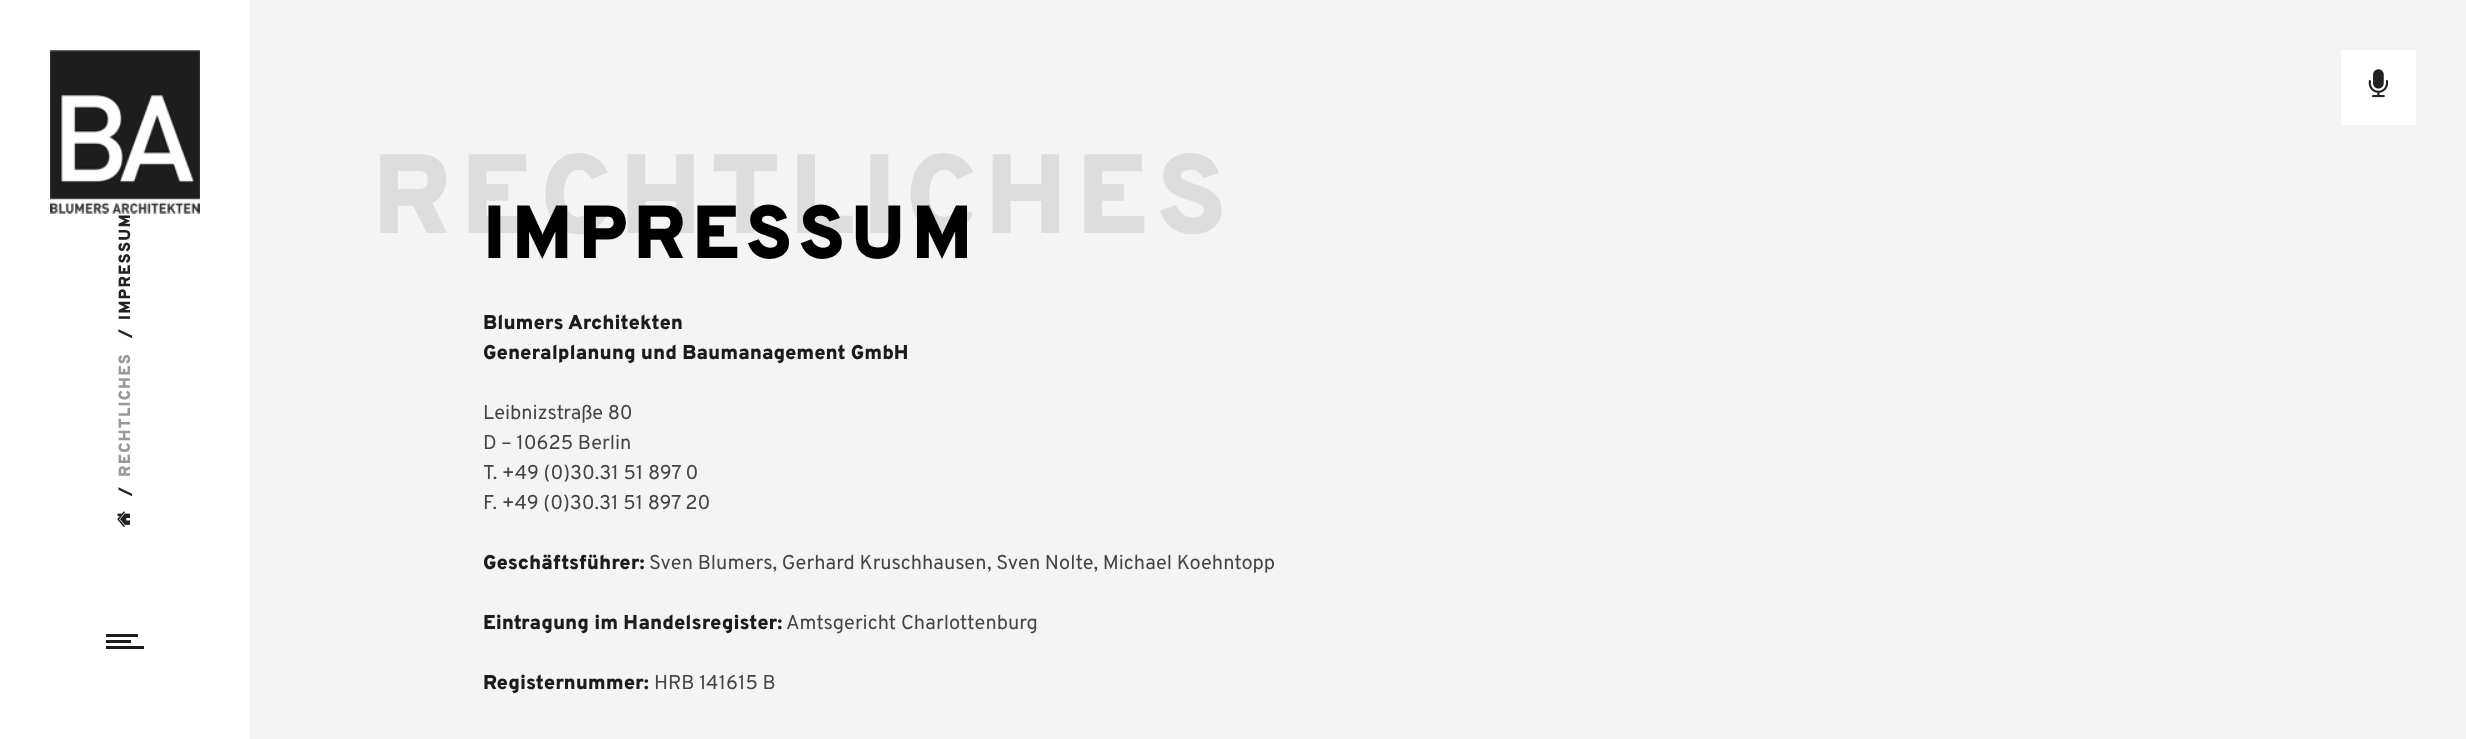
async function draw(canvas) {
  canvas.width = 2466
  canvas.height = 739
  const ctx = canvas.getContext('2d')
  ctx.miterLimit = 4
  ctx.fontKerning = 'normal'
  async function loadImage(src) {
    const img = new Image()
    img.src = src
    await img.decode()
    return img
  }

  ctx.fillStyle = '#f4f4f4'
  ctx.fillRect(0, 0, 2466, 739)
  ctx.fillStyle = '#fff'
  ctx.fillRect(2341, 50, 75, 75)
  ctx.drawImage(await loadImage('image0.png'), 2368, 69, 21, 29)
  ctx.fillRect(0, 0, 250, 739)
  ctx.drawImage(await loadImage('image1.png'), 50, 50, 150, 164)
  ctx.letterSpacing = '1.25px'
  ctx.font = '900 16.25px Overpass'
  ctx.fillStyle = '#222'
  ctx.save()
  ctx.translate(130, 320)
  ctx.rotate(-90 * Math.PI / 180)
  ctx.fillText('IMPRESSUM', 0, 0)
  ctx.restore()
  ctx.save()
  ctx.translate(130, 338)
  ctx.rotate(-90 * Math.PI / 180)
  ctx.fillText('/', 0, 0)
  ctx.restore()
  ctx.fillStyle = '#999'
  ctx.save()
  ctx.translate(130, 477)
  ctx.rotate(-90 * Math.PI / 180)
  ctx.fillText('RECHTLICHES', 0, 0)
  ctx.restore()
  ctx.fillStyle = '#222'
  ctx.save()
  ctx.translate(130, 496)
  ctx.rotate(-90 * Math.PI / 180)
  ctx.fillText('/', 0, 0)
  ctx.restore()
  ctx.drawImage(await loadImage('image2.png'), 117, 511, 14, 16)
  ctx.fillStyle = '#1c1c1c'
  ctx.fillRect(106, 640, 25, 3)
  ctx.fillRect(106, 634, 32, 3)
  ctx.fillRect(106, 646, 38, 3)
  ctx.letterSpacing = '9px'
  ctx.font = '900 112.5px Overpass'
  ctx.fillStyle = '#ddd'
  ctx.fillText('RECHTLICHES', 372, 233)
  ctx.letterSpacing = '6px'
  ctx.font = '900 75px Overpass'
  ctx.fillStyle = '#000'
  ctx.fillText('IMPRESSUM', 483, 258)
  ctx.letterSpacing = '0px'
  ctx.font = '900 20px Overpass'
  ctx.fillStyle = '#1c1c1c'
  ctx.fillText('Blumers Architekten', 483, 329)
  ctx.fillText('Generalplanung und Baumanagement GmbH', 483, 359)
  ctx.font = '20px Overpass'
  ctx.fillStyle = '#444'
  ctx.fillText('Leibnizstraße 80', 483, 419)
  ctx.fillText('D – 10625 Berlin', 483, 449)
  ctx.fillText('T. +49 (0)30.31 51 897 0', 483, 479)
  ctx.fillText('F. +49 (0)30.31 51 897 20', 483, 509)
  ctx.font = '900 20px Overpass'
  ctx.fillStyle = '#1c1c1c'
  ctx.fillText('Geschäftsführer:', 483, 569)
  ctx.font = '20px Overpass'
  ctx.fillStyle = '#444'
  ctx.fillText('Sven Blumers, Gerhard Kruschhausen, Sven Nolte, Michael Koehntopp', 649, 569)
  ctx.font = '900 20px Overpass'
  ctx.fillStyle = '#1c1c1c'
  ctx.fillText('Eintragung im Handelsregister:', 483, 629)
  ctx.font = '20px Overpass'
  ctx.fillStyle = '#444'
  ctx.fillText('Amtsgericht Charlottenburg', 786, 629)
  ctx.font = '900 20px Overpass'
  ctx.fillStyle = '#1c1c1c'
  ctx.fillText('Registernummer:', 483, 689)
  ctx.font = '20px Overpass'
  ctx.fillStyle = '#444'
  ctx.fillText('HRB 141615 B', 654, 689)
}

draw(document.querySelector('canvas'))
